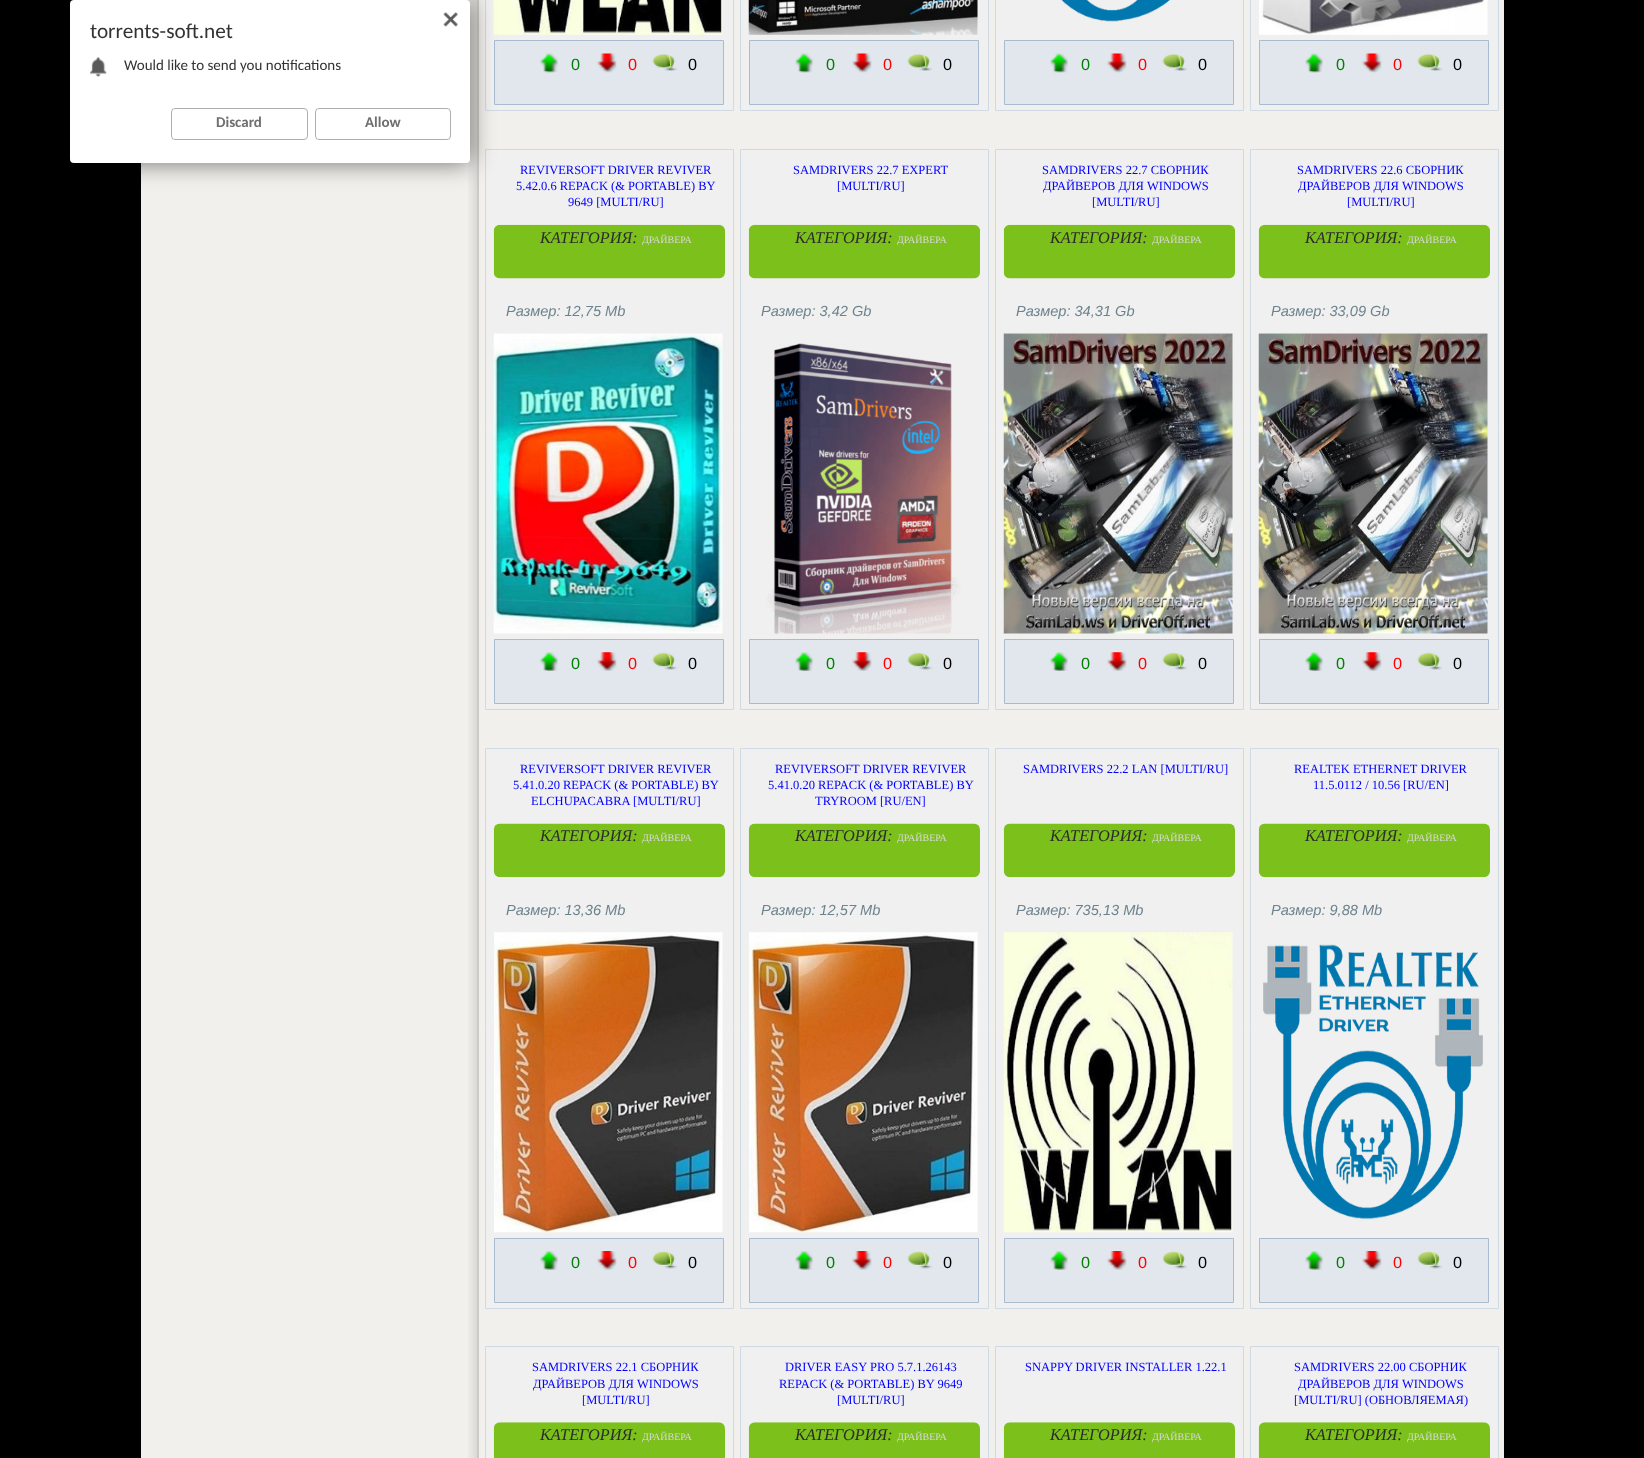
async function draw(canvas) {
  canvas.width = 1644
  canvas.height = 1458
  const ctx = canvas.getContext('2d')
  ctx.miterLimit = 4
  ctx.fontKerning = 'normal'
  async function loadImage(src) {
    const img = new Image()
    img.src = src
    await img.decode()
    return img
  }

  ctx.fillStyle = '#000'
  ctx.fillRect(0, 0, 1644, 1458)
  ctx.fillStyle = '#f1f0ed'
  ctx.fillRect(141, 0, 1363, 1458)
  ctx.drawImage(await loadImage('image2.png'), 468, 0, 11, 1458)
  ctx.fillStyle = '#f0f0f0'
  ctx.beginPath()
  ctx.rect(485.5, -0.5, 248, 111)
  ctx.fill()
  ctx.strokeStyle = '#cfdae5'
  ctx.stroke()
  ctx.drawImage(await loadImage('image3.png'), 493, 0, 230, 35)
  ctx.fillStyle = '#e1e7ed'
  ctx.beginPath()
  ctx.rect(494.5, 40.5, 229, 64)
  ctx.fill()
  ctx.strokeStyle = '#a9bccf'
  ctx.stroke()
  ctx.fillStyle = '#f0f0f0'
  ctx.beginPath()
  ctx.rect(485.5, 149.5, 248, 560)
  ctx.fill()
  ctx.strokeStyle = '#cfdae5'
  ctx.stroke()
  ctx.fillStyle = '#0000008a'
  ctx.filter = 'blur(12.5px)'
  ctx.beginPath()
  ctx.roundRect(70, 0, 400, 163, 4)
  ctx.fill()
  ctx.filter = 'none'
  ctx.fillStyle = '#fff'
  ctx.beginPath()
  ctx.roundRect(70, 0, 400, 163, 4)
  ctx.fill()
  ctx.drawImage(await loadImage('image0.png'), 443, 12, 15, 15)
  ctx.font = '21.25px Carlito'
  ctx.fillStyle = '#333'
  ctx.fillText('torrents-soft.net', 90, 38)
  ctx.drawImage(await loadImage('image1.png'), 90, 57, 17, 20)
  ctx.font = '15px Carlito'
  ctx.fillText('Would like to send you notifications', 124, 70)
  ctx.beginPath()
  ctx.roundRect(171.5, 108.5, 136, 31, 3.5)
  ctx.strokeStyle = '#afafaf'
  ctx.stroke()
  ctx.font = 'bold 15px Carlito'
  ctx.fillStyle = '#6f6f6f'
  ctx.fillText('Discard', 216, 127)
  ctx.beginPath()
  ctx.roundRect(315.5, 108.5, 135, 31, 3.5)
  ctx.stroke()
  ctx.fillText('Allow', 365, 127)
  ctx.drawImage(await loadImage('image4.png'), 540, 53, 18, 20)
  ctx.font = '16.25px Liberation Sans'
  ctx.fillStyle = '#008000'
  ctx.fillText('0', 571, 70)
  ctx.drawImage(await loadImage('image5.png'), 597, 53, 20, 20)
  ctx.fillStyle = '#f00'
  ctx.fillText('0', 628, 70)
  ctx.drawImage(await loadImage('image6.png'), 652, 53, 26, 18)
  ctx.fillStyle = '#000'
  ctx.fillText('0', 688, 70)
  ctx.fillStyle = '#f0f0f0'
  ctx.beginPath()
  ctx.rect(740.5, -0.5, 248, 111)
  ctx.fill()
  ctx.strokeStyle = '#cfdae5'
  ctx.stroke()
  ctx.drawImage(await loadImage('image7.png'), 748, 0, 230, 35)
  ctx.fillStyle = '#e1e7ed'
  ctx.beginPath()
  ctx.rect(749.5, 40.5, 229, 64)
  ctx.fill()
  ctx.strokeStyle = '#a9bccf'
  ctx.stroke()
  ctx.drawImage(await loadImage('image4.png'), 795, 53, 18, 20)
  ctx.fillStyle = '#008000'
  ctx.fillText('0', 826, 70)
  ctx.drawImage(await loadImage('image5.png'), 852, 53, 20, 20)
  ctx.fillStyle = '#f00'
  ctx.fillText('0', 883, 70)
  ctx.drawImage(await loadImage('image6.png'), 907, 53, 26, 18)
  ctx.fillStyle = '#000'
  ctx.fillText('0', 943, 70)
  ctx.fillStyle = '#f0f0f0'
  ctx.beginPath()
  ctx.rect(995.5, -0.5, 248, 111)
  ctx.fill()
  ctx.strokeStyle = '#cfdae5'
  ctx.stroke()
  ctx.drawImage(await loadImage('image8.png'), 1061, 0, 110, 22)
  ctx.fillStyle = '#e1e7ed'
  ctx.beginPath()
  ctx.rect(1004.5, 40.5, 229, 64)
  ctx.fill()
  ctx.strokeStyle = '#a9bccf'
  ctx.stroke()
  ctx.drawImage(await loadImage('image4.png'), 1050, 53, 18, 20)
  ctx.fillStyle = '#008000'
  ctx.fillText('0', 1081, 70)
  ctx.drawImage(await loadImage('image5.png'), 1107, 53, 20, 20)
  ctx.fillStyle = '#f00'
  ctx.fillText('0', 1138, 70)
  ctx.drawImage(await loadImage('image9.png'), 1162, 53, 26, 18)
  ctx.fillStyle = '#000'
  ctx.fillText('0', 1198, 70)
  ctx.fillStyle = '#f0f0f0'
  ctx.beginPath()
  ctx.rect(1250.5, -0.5, 248, 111)
  ctx.fill()
  ctx.strokeStyle = '#cfdae5'
  ctx.stroke()
  ctx.drawImage(await loadImage('image10.png'), 1259, 0, 229, 35)
  ctx.fillStyle = '#e1e7ed'
  ctx.beginPath()
  ctx.rect(1259.5, 40.5, 229, 64)
  ctx.fill()
  ctx.strokeStyle = '#a9bccf'
  ctx.stroke()
  ctx.drawImage(await loadImage('image4.png'), 1305, 53, 18, 20)
  ctx.fillStyle = '#008000'
  ctx.fillText('0', 1336, 70)
  ctx.drawImage(await loadImage('image5.png'), 1362, 53, 20, 20)
  ctx.fillStyle = '#f00'
  ctx.fillText('0', 1393, 70)
  ctx.drawImage(await loadImage('image6.png'), 1417, 53, 26, 18)
  ctx.fillStyle = '#000'
  ctx.fillText('0', 1453, 70)
  ctx.font = '12.5px Liberation Serif'
  ctx.fillStyle = '#00f'
  ctx.fillText('REVIVERSOFT DRIVER REVIVER', 520, 174)
  ctx.fillText('5.42.0.6 REPACK (& PORTABLE) BY', 516, 190)
  ctx.fillText('9649 [MULTI/RU]', 568, 206)
  ctx.drawImage(await loadImage('image11.png'), 493, 224, 232, 55)
  ctx.font = 'italic 16.25px Liberation Serif'
  ctx.fillStyle = '#2c2c2c'
  ctx.fillText('КАТЕГОРИЯ:', 540, 243)
  ctx.font = '10px Liberation Serif'
  ctx.fillStyle = '#d8d8d8'
  ctx.fillText('ДРАЙВЕРА', 642, 243)
  ctx.font = 'italic 14.6px Liberation Sans'
  ctx.fillStyle = '#6c838e'
  ctx.fillText('Размер: 12,75 Mb', 506, 316)
  ctx.drawImage(await loadImage('image12.png'), 493, 333, 230, 301)
  ctx.fillStyle = '#e1e7ed'
  ctx.beginPath()
  ctx.rect(494.5, 639.5, 229, 64)
  ctx.fill()
  ctx.stroke()
  ctx.drawImage(await loadImage('image13.png'), 540, 652, 18, 19)
  ctx.font = '16.25px Liberation Sans'
  ctx.fillStyle = '#008000'
  ctx.fillText('0', 571, 669)
  ctx.drawImage(await loadImage('image14.png'), 597, 652, 20, 19)
  ctx.fillStyle = '#f00'
  ctx.fillText('0', 628, 669)
  ctx.drawImage(await loadImage('image15.png'), 652, 652, 26, 18)
  ctx.fillStyle = '#000'
  ctx.fillText('0', 688, 669)
  ctx.fillStyle = '#f0f0f0'
  ctx.beginPath()
  ctx.rect(740.5, 149.5, 248, 560)
  ctx.fill()
  ctx.strokeStyle = '#cfdae5'
  ctx.stroke()
  ctx.font = '12.5px Liberation Serif'
  ctx.fillStyle = '#00f'
  ctx.fillText('SAMDRIVERS 22.7 EXPERT', 793, 174)
  ctx.fillText('[MULTI/RU]', 837, 190)
  ctx.drawImage(await loadImage('image11.png'), 748, 224, 232, 55)
  ctx.font = 'italic 16.25px Liberation Serif'
  ctx.fillStyle = '#2c2c2c'
  ctx.fillText('КАТЕГОРИЯ:', 795, 243)
  ctx.font = '10px Liberation Serif'
  ctx.fillStyle = '#d8d8d8'
  ctx.fillText('ДРАЙВЕРА', 897, 243)
  ctx.font = 'italic 14.6px Liberation Sans'
  ctx.fillStyle = '#6c838e'
  ctx.fillText('Размер: 3,42 Gb', 761, 316)
  ctx.drawImage(await loadImage('image16.png'), 764, 343, 197, 291)
  ctx.fillStyle = '#e1e7ed'
  ctx.beginPath()
  ctx.rect(749.5, 639.5, 229, 64)
  ctx.fill()
  ctx.strokeStyle = '#a9bccf'
  ctx.stroke()
  ctx.drawImage(await loadImage('image13.png'), 795, 652, 18, 19)
  ctx.font = '16.25px Liberation Sans'
  ctx.fillStyle = '#008000'
  ctx.fillText('0', 826, 669)
  ctx.drawImage(await loadImage('image14.png'), 852, 652, 20, 19)
  ctx.fillStyle = '#f00'
  ctx.fillText('0', 883, 669)
  ctx.drawImage(await loadImage('image15.png'), 907, 652, 26, 18)
  ctx.fillStyle = '#000'
  ctx.fillText('0', 943, 669)
  ctx.fillStyle = '#f0f0f0'
  ctx.beginPath()
  ctx.rect(995.5, 149.5, 248, 560)
  ctx.fill()
  ctx.strokeStyle = '#cfdae5'
  ctx.stroke()
  ctx.font = '12.5px Liberation Serif'
  ctx.fillStyle = '#00f'
  ctx.fillText('SAMDRIVERS 22.7 СБОРНИК', 1042, 174)
  ctx.fillText('ДРАЙВЕРОВ ДЛЯ WINDOWS', 1043, 190)
  ctx.fillText('[MULTI/RU]', 1092, 206)
  ctx.drawImage(await loadImage('image11.png'), 1003, 224, 232, 55)
  ctx.font = 'italic 16.25px Liberation Serif'
  ctx.fillStyle = '#2c2c2c'
  ctx.fillText('КАТЕГОРИЯ:', 1050, 243)
  ctx.font = '10px Liberation Serif'
  ctx.fillStyle = '#d8d8d8'
  ctx.fillText('ДРАЙВЕРА', 1152, 243)
  ctx.font = 'italic 14.6px Liberation Sans'
  ctx.fillStyle = '#6c838e'
  ctx.fillText('Размер: 34,31 Gb', 1016, 316)
  ctx.drawImage(await loadImage('image17.png'), 1003, 333, 230, 301)
  ctx.fillStyle = '#e1e7ed'
  ctx.beginPath()
  ctx.rect(1004.5, 639.5, 229, 64)
  ctx.fill()
  ctx.strokeStyle = '#a9bccf'
  ctx.stroke()
  ctx.drawImage(await loadImage('image13.png'), 1050, 652, 18, 19)
  ctx.font = '16.25px Liberation Sans'
  ctx.fillStyle = '#008000'
  ctx.fillText('0', 1081, 669)
  ctx.drawImage(await loadImage('image14.png'), 1107, 652, 20, 19)
  ctx.fillStyle = '#f00'
  ctx.fillText('0', 1138, 669)
  ctx.drawImage(await loadImage('image18.png'), 1162, 652, 26, 18)
  ctx.fillStyle = '#000'
  ctx.fillText('0', 1198, 669)
  ctx.fillStyle = '#f0f0f0'
  ctx.beginPath()
  ctx.rect(1250.5, 149.5, 248, 560)
  ctx.fill()
  ctx.strokeStyle = '#cfdae5'
  ctx.stroke()
  ctx.font = '12.5px Liberation Serif'
  ctx.fillStyle = '#00f'
  ctx.fillText('SAMDRIVERS 22.6 СБОРНИК', 1297, 174)
  ctx.fillText('ДРАЙВЕРОВ ДЛЯ WINDOWS', 1298, 190)
  ctx.fillText('[MULTI/RU]', 1347, 206)
  ctx.drawImage(await loadImage('image11.png'), 1258, 224, 232, 55)
  ctx.font = 'italic 16.25px Liberation Serif'
  ctx.fillStyle = '#2c2c2c'
  ctx.fillText('КАТЕГОРИЯ:', 1305, 243)
  ctx.font = '10px Liberation Serif'
  ctx.fillStyle = '#d8d8d8'
  ctx.fillText('ДРАЙВЕРА', 1407, 243)
  ctx.font = 'italic 14.6px Liberation Sans'
  ctx.fillStyle = '#6c838e'
  ctx.fillText('Размер: 33,09 Gb', 1271, 316)
  ctx.drawImage(await loadImage('image19.png'), 1258, 333, 230, 301)
  ctx.fillStyle = '#e1e7ed'
  ctx.beginPath()
  ctx.rect(1259.5, 639.5, 229, 64)
  ctx.fill()
  ctx.strokeStyle = '#a9bccf'
  ctx.stroke()
  ctx.drawImage(await loadImage('image13.png'), 1305, 652, 18, 19)
  ctx.font = '16.25px Liberation Sans'
  ctx.fillStyle = '#008000'
  ctx.fillText('0', 1336, 669)
  ctx.drawImage(await loadImage('image14.png'), 1362, 652, 20, 19)
  ctx.fillStyle = '#f00'
  ctx.fillText('0', 1393, 669)
  ctx.drawImage(await loadImage('image15.png'), 1417, 652, 26, 18)
  ctx.fillStyle = '#000'
  ctx.fillText('0', 1453, 669)
  ctx.fillStyle = '#f0f0f0'
  ctx.beginPath()
  ctx.rect(485.5, 748.5, 248, 560)
  ctx.fill()
  ctx.strokeStyle = '#cfdae5'
  ctx.stroke()
  ctx.font = '12.5px Liberation Serif'
  ctx.fillStyle = '#00f'
  ctx.fillText('REVIVERSOFT DRIVER REVIVER', 520, 773)
  ctx.fillText('5.41.0.20 REPACK (& PORTABLE) BY', 513, 789)
  ctx.fillText('ELCHUPACABRA [MULTI/RU]', 531, 805)
  ctx.drawImage(await loadImage('image20.png'), 493, 823, 232, 55)
  ctx.font = 'italic 16.25px Liberation Serif'
  ctx.fillStyle = '#2c2c2c'
  ctx.fillText('КАТЕГОРИЯ:', 540, 841)
  ctx.font = '10px Liberation Serif'
  ctx.fillStyle = '#d8d8d8'
  ctx.fillText('ДРАЙВЕРА', 642, 841)
  ctx.font = 'italic 14.6px Liberation Sans'
  ctx.fillStyle = '#6c838e'
  ctx.fillText('Размер: 13,36 Mb', 506, 915)
  ctx.drawImage(await loadImage('image21.png'), 494, 932, 229, 301)
  ctx.fillStyle = '#e1e7ed'
  ctx.beginPath()
  ctx.rect(494.5, 1238.5, 229, 64)
  ctx.fill()
  ctx.strokeStyle = '#a9bccf'
  ctx.stroke()
  ctx.drawImage(await loadImage('image22.png'), 540, 1251, 18, 19)
  ctx.font = '16.25px Liberation Sans'
  ctx.fillStyle = '#008000'
  ctx.fillText('0', 571, 1268)
  ctx.drawImage(await loadImage('image23.png'), 597, 1251, 20, 19)
  ctx.fillStyle = '#f00'
  ctx.fillText('0', 628, 1268)
  ctx.drawImage(await loadImage('image24.png'), 652, 1251, 26, 18)
  ctx.fillStyle = '#000'
  ctx.fillText('0', 688, 1268)
  ctx.fillStyle = '#f0f0f0'
  ctx.beginPath()
  ctx.rect(740.5, 748.5, 248, 560)
  ctx.fill()
  ctx.strokeStyle = '#cfdae5'
  ctx.stroke()
  ctx.font = '12.5px Liberation Serif'
  ctx.fillStyle = '#00f'
  ctx.fillText('REVIVERSOFT DRIVER REVIVER', 775, 773)
  ctx.fillText('5.41.0.20 REPACK (& PORTABLE) BY', 768, 789)
  ctx.fillText('TRYROOM [RU/EN]', 815, 805)
  ctx.drawImage(await loadImage('image20.png'), 748, 823, 232, 55)
  ctx.font = 'italic 16.25px Liberation Serif'
  ctx.fillStyle = '#2c2c2c'
  ctx.fillText('КАТЕГОРИЯ:', 795, 841)
  ctx.font = '10px Liberation Serif'
  ctx.fillStyle = '#d8d8d8'
  ctx.fillText('ДРАЙВЕРА', 897, 841)
  ctx.font = 'italic 14.6px Liberation Sans'
  ctx.fillStyle = '#6c838e'
  ctx.fillText('Размер: 12,57 Mb', 761, 915)
  ctx.drawImage(await loadImage('image21.png'), 749, 932, 229, 301)
  ctx.fillStyle = '#e1e7ed'
  ctx.beginPath()
  ctx.rect(749.5, 1238.5, 229, 64)
  ctx.fill()
  ctx.strokeStyle = '#a9bccf'
  ctx.stroke()
  ctx.drawImage(await loadImage('image22.png'), 795, 1251, 18, 19)
  ctx.font = '16.25px Liberation Sans'
  ctx.fillStyle = '#008000'
  ctx.fillText('0', 826, 1268)
  ctx.drawImage(await loadImage('image23.png'), 852, 1251, 20, 19)
  ctx.fillStyle = '#f00'
  ctx.fillText('0', 883, 1268)
  ctx.drawImage(await loadImage('image24.png'), 907, 1251, 26, 18)
  ctx.fillStyle = '#000'
  ctx.fillText('0', 943, 1268)
  ctx.fillStyle = '#f0f0f0'
  ctx.beginPath()
  ctx.rect(995.5, 748.5, 248, 560)
  ctx.fill()
  ctx.strokeStyle = '#cfdae5'
  ctx.stroke()
  ctx.font = '12.5px Liberation Serif'
  ctx.fillStyle = '#00f'
  ctx.fillText('SAMDRIVERS 22.2 LAN [MULTI/RU]', 1023, 773)
  ctx.drawImage(await loadImage('image20.png'), 1003, 823, 232, 55)
  ctx.font = 'italic 16.25px Liberation Serif'
  ctx.fillStyle = '#2c2c2c'
  ctx.fillText('КАТЕГОРИЯ:', 1050, 841)
  ctx.font = '10px Liberation Serif'
  ctx.fillStyle = '#d8d8d8'
  ctx.fillText('ДРАЙВЕРА', 1152, 841)
  ctx.font = 'italic 14.6px Liberation Sans'
  ctx.fillStyle = '#6c838e'
  ctx.fillText('Размер: 735,13 Mb', 1016, 915)
  ctx.drawImage(await loadImage('image25.png'), 1003, 932, 230, 301)
  ctx.fillStyle = '#e1e7ed'
  ctx.beginPath()
  ctx.rect(1004.5, 1238.5, 229, 64)
  ctx.fill()
  ctx.strokeStyle = '#a9bccf'
  ctx.stroke()
  ctx.drawImage(await loadImage('image22.png'), 1050, 1251, 18, 19)
  ctx.font = '16.25px Liberation Sans'
  ctx.fillStyle = '#008000'
  ctx.fillText('0', 1081, 1268)
  ctx.drawImage(await loadImage('image23.png'), 1107, 1251, 20, 19)
  ctx.fillStyle = '#f00'
  ctx.fillText('0', 1138, 1268)
  ctx.drawImage(await loadImage('image26.png'), 1162, 1251, 26, 18)
  ctx.fillStyle = '#000'
  ctx.fillText('0', 1198, 1268)
  ctx.fillStyle = '#f0f0f0'
  ctx.beginPath()
  ctx.rect(1250.5, 748.5, 248, 560)
  ctx.fill()
  ctx.strokeStyle = '#cfdae5'
  ctx.stroke()
  ctx.font = '12.5px Liberation Serif'
  ctx.fillStyle = '#00f'
  ctx.fillText('REALTEK ETHERNET DRIVER', 1294, 773)
  ctx.fillText('11.5.0112 / 10.56 [RU/EN]', 1313, 789)
  ctx.drawImage(await loadImage('image20.png'), 1258, 823, 232, 55)
  ctx.font = 'italic 16.25px Liberation Serif'
  ctx.fillStyle = '#2c2c2c'
  ctx.fillText('КАТЕГОРИЯ:', 1305, 841)
  ctx.font = '10px Liberation Serif'
  ctx.fillStyle = '#d8d8d8'
  ctx.fillText('ДРАЙВЕРА', 1407, 841)
  ctx.font = 'italic 14.6px Liberation Sans'
  ctx.fillStyle = '#6c838e'
  ctx.fillText('Размер: 9,88 Mb', 1271, 915)
  ctx.drawImage(await loadImage('image27.png'), 1263, 944, 220, 276)
  ctx.fillStyle = '#e1e7ed'
  ctx.beginPath()
  ctx.rect(1259.5, 1238.5, 229, 64)
  ctx.fill()
  ctx.strokeStyle = '#a9bccf'
  ctx.stroke()
  ctx.drawImage(await loadImage('image22.png'), 1305, 1251, 18, 19)
  ctx.font = '16.25px Liberation Sans'
  ctx.fillStyle = '#008000'
  ctx.fillText('0', 1336, 1268)
  ctx.drawImage(await loadImage('image23.png'), 1362, 1251, 20, 19)
  ctx.fillStyle = '#f00'
  ctx.fillText('0', 1393, 1268)
  ctx.drawImage(await loadImage('image24.png'), 1417, 1251, 26, 18)
  ctx.fillStyle = '#000'
  ctx.fillText('0', 1453, 1268)
  ctx.fillStyle = '#f0f0f0'
  ctx.beginPath()
  ctx.rect(485.5, 1346.5, 248, 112)
  ctx.fill()
  ctx.strokeStyle = '#cfdae5'
  ctx.stroke()
  ctx.font = '12.5px Liberation Serif'
  ctx.fillStyle = '#00f'
  ctx.fillText('SAMDRIVERS 22.1 СБОРНИК', 532, 1371)
  ctx.fillText('ДРАЙВЕРОВ ДЛЯ WINDOWS', 533, 1388)
  ctx.fillText('[MULTI/RU]', 582, 1404)
  ctx.drawImage(await loadImage('image28.png'), 493, 1422, 232, 36)
  ctx.font = 'italic 16.25px Liberation Serif'
  ctx.fillStyle = '#2c2c2c'
  ctx.fillText('КАТЕГОРИЯ:', 540, 1440)
  ctx.font = '10px Liberation Serif'
  ctx.fillStyle = '#d8d8d8'
  ctx.fillText('ДРАЙВЕРА', 642, 1440)
  ctx.fillStyle = '#f0f0f0'
  ctx.beginPath()
  ctx.rect(740.5, 1346.5, 248, 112)
  ctx.fill()
  ctx.stroke()
  ctx.font = '12.5px Liberation Serif'
  ctx.fillStyle = '#00f'
  ctx.fillText('DRIVER EASY PRO 5.7.1.26143', 785, 1371)
  ctx.fillText('REPACK (& PORTABLE) BY 9649', 779, 1388)
  ctx.fillText('[MULTI/RU]', 837, 1404)
  ctx.drawImage(await loadImage('image28.png'), 748, 1422, 232, 36)
  ctx.font = 'italic 16.25px Liberation Serif'
  ctx.fillStyle = '#2c2c2c'
  ctx.fillText('КАТЕГОРИЯ:', 795, 1440)
  ctx.font = '10px Liberation Serif'
  ctx.fillStyle = '#d8d8d8'
  ctx.fillText('ДРАЙВЕРА', 897, 1440)
  ctx.fillStyle = '#f0f0f0'
  ctx.beginPath()
  ctx.rect(995.5, 1346.5, 248, 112)
  ctx.fill()
  ctx.stroke()
  ctx.font = '12.5px Liberation Serif'
  ctx.fillStyle = '#00f'
  ctx.fillText('SNAPPY DRIVER INSTALLER 1.22.1', 1025, 1371)
  ctx.drawImage(await loadImage('image28.png'), 1003, 1422, 232, 36)
  ctx.font = 'italic 16.25px Liberation Serif'
  ctx.fillStyle = '#2c2c2c'
  ctx.fillText('КАТЕГОРИЯ:', 1050, 1440)
  ctx.font = '10px Liberation Serif'
  ctx.fillStyle = '#d8d8d8'
  ctx.fillText('ДРАЙВЕРА', 1152, 1440)
  ctx.fillStyle = '#f0f0f0'
  ctx.beginPath()
  ctx.rect(1250.5, 1346.5, 248, 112)
  ctx.fill()
  ctx.stroke()
  ctx.font = '12.5px Liberation Serif'
  ctx.fillStyle = '#00f'
  ctx.fillText('SAMDRIVERS 22.00 СБОРНИК', 1294, 1371)
  ctx.fillText('ДРАЙВЕРОВ ДЛЯ WINDOWS', 1298, 1388)
  ctx.fillText('[MULTI/RU] (ОБНОВЛЯЕМАЯ)', 1294, 1404)
  ctx.drawImage(await loadImage('image28.png'), 1258, 1422, 232, 36)
  ctx.font = 'italic 16.25px Liberation Serif'
  ctx.fillStyle = '#2c2c2c'
  ctx.fillText('КАТЕГОРИЯ:', 1305, 1440)
  ctx.font = '10px Liberation Serif'
  ctx.fillStyle = '#d8d8d8'
  ctx.fillText('ДРАЙВЕРА', 1407, 1440)
}

draw(document.querySelector('canvas'))
